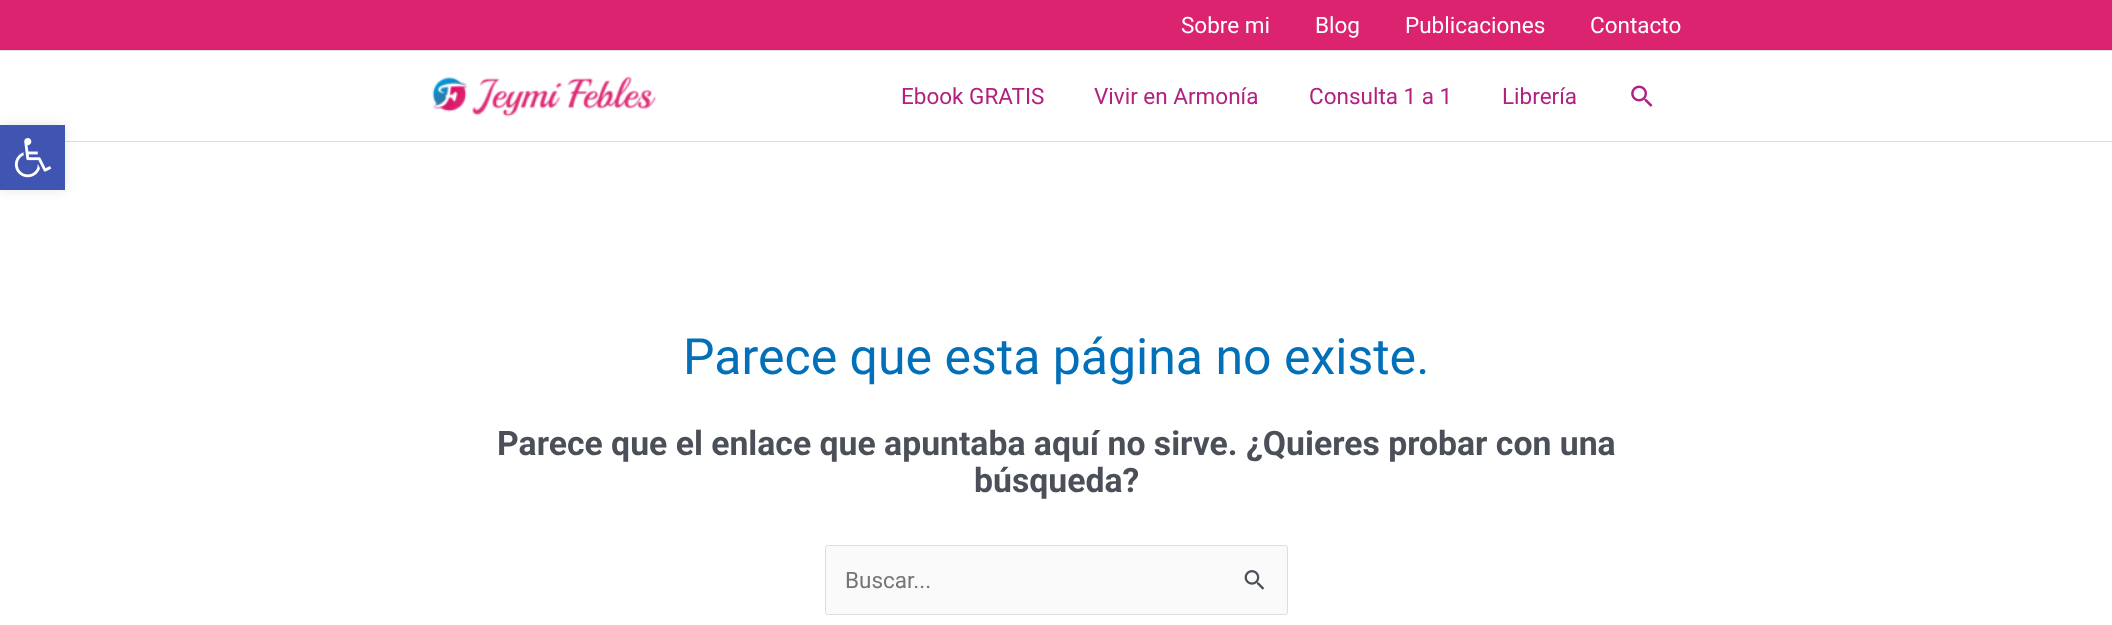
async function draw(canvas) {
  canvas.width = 2112
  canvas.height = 625
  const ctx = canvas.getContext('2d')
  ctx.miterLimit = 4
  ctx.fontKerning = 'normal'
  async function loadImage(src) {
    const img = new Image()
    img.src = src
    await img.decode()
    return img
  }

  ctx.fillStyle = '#fff'
  ctx.fillRect(0, 0, 2112, 625)
  ctx.fillStyle = '#ddd'
  ctx.fillRect(65, 141, 2047, 1)
  ctx.fillStyle = '#0000001a'
  ctx.filter = 'blur(6px)'
  ctx.beginPath()
  ctx.rect(0, 125, 65, 65)
  ctx.fill()
  ctx.filter = 'none'
  ctx.fillStyle = '#4054b2'
  ctx.fillRect(0, 125, 65, 65)
  ctx.drawImage(await loadImage('image0.png'), 14, 138, 38, 40)
  ctx.fillStyle = '#db236f'
  ctx.fillRect(0, 0, 2112, 50)
  ctx.fillStyle = '#ddd'
  ctx.fillRect(0, 50, 2112, 1)
  ctx.font = '22.5px Roboto'
  ctx.fillStyle = '#fff'
  ctx.fillText('Sobre mi', 1181, 33)
  ctx.fillText('Blog', 1315, 33)
  ctx.fillText('Publicaciones', 1405, 33)
  ctx.fillText('Contacto', 1590, 33)
  ctx.drawImage(await loadImage('image1.png'), 432, 76, 225, 41)
  ctx.fillStyle = '#b22081'
  ctx.fillText('Ebook GRATIS', 901, 104)
  ctx.fillText('Vivir en Armonía', 1094, 104)
  ctx.fillText('Consulta 1 a 1', 1309, 104)
  ctx.fillText('Librería', 1502, 104)
  ctx.drawImage(await loadImage('image2.png'), 1631, 85, 22, 22)
  ctx.font = '50px Roboto'
  ctx.fillStyle = '#0170b9'
  ctx.fillText('Parece que esta página no existe.', 683, 374)
  ctx.font = 'bold 33.75px Roboto'
  ctx.fillStyle = '#4b4f58'
  ctx.fillText('Parece que el enlace que apuntaba aquí no sirve. ¿Quieres probar con una', 497, 455)
  ctx.fillText('búsqueda?', 974, 492)
  ctx.fillStyle = '#fafafa'
  ctx.beginPath()
  ctx.roundRect(825.5, 545.5, 462, 69, 2)
  ctx.fill()
  ctx.strokeStyle = '#ddd'
  ctx.stroke()
  ctx.font = '22.5px Roboto'
  ctx.fillStyle = '#757575'
  ctx.fillText('Buscar...', 845, 588)
  ctx.drawImage(await loadImage('image3.png'), 1244, 570, 21, 20)
}

draw(document.querySelector('canvas'))
